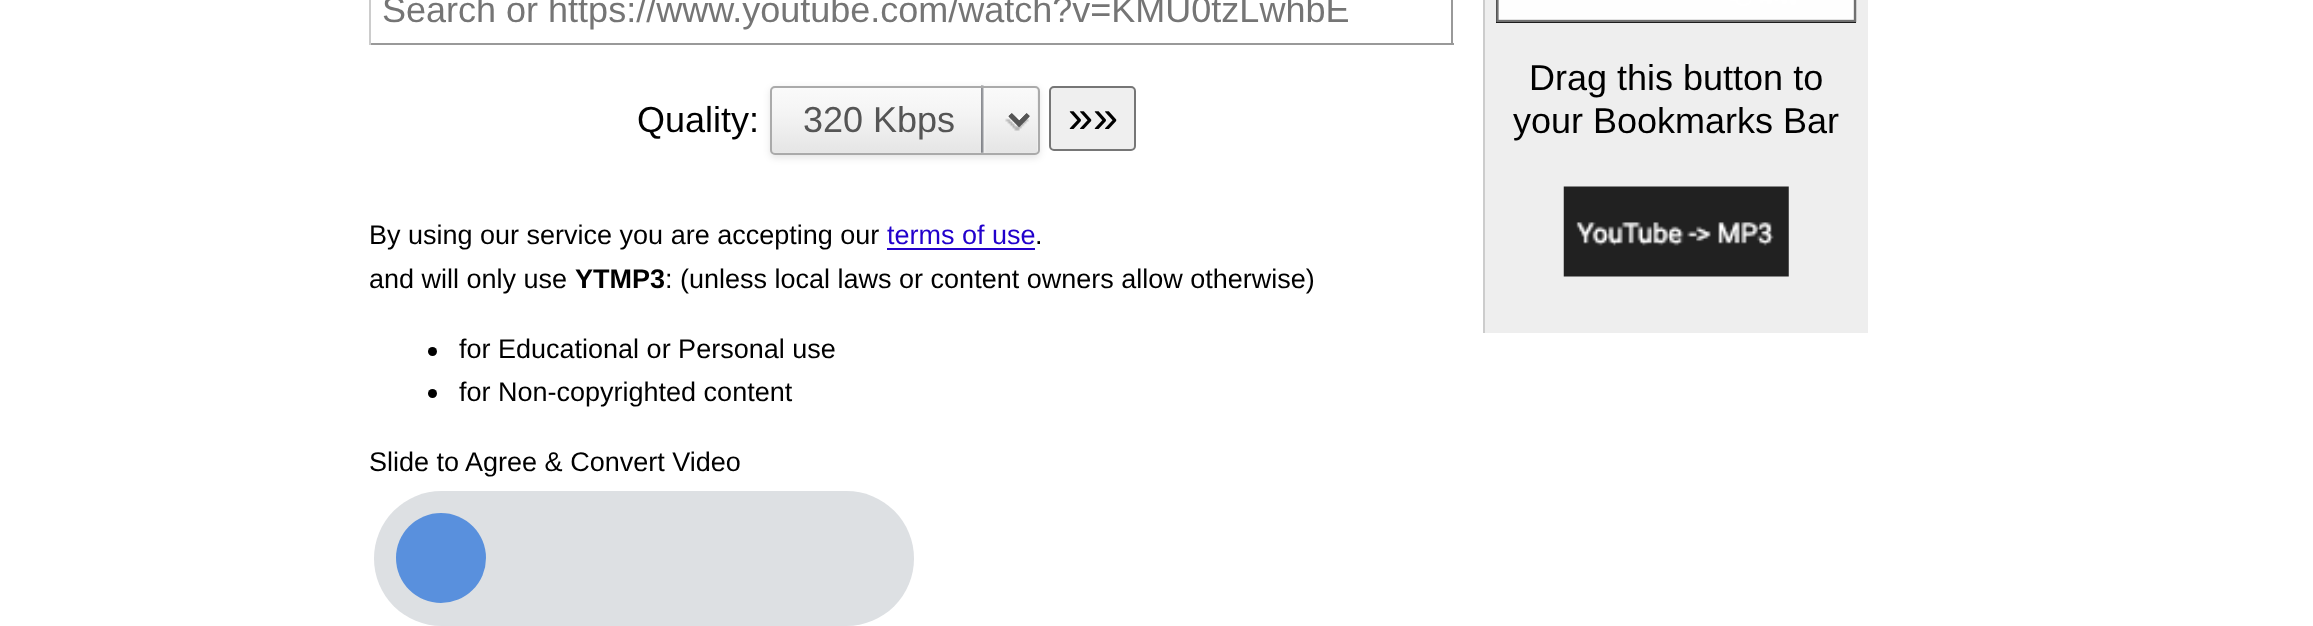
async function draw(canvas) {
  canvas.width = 2313
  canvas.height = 626
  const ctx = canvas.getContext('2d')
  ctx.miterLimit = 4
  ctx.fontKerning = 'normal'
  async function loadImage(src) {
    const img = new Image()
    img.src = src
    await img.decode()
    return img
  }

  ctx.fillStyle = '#fff'
  ctx.fillRect(0, 0, 2313, 626)
  ctx.fillStyle = '#999'
  ctx.fillRect(1451, 0, 2, 45)
  ctx.fillRect(369, 43, 1085, 2)
  ctx.fillStyle = '#ccc'
  ctx.fillRect(369, 0, 2, 45)
  ctx.font = '36px Liberation Sans'
  ctx.fillStyle = '#757575'
  ctx.fillText('Search or https://www.youtube.com/watch?v=KMU0tzLwhbE', 382, 22)
  ctx.fillStyle = '#000'
  ctx.fillText('Quality:', 637, 132)
  ctx.fillStyle = '#0000001a'
  ctx.filter = 'blur(3.5px)'
  ctx.beginPath()
  ctx.roundRect(770, 88, 270, 70, 5)
  ctx.fill()
  ctx.filter = 'none'
  ctx.fillStyle = '#efefef'
  ctx.beginPath()
  ctx.roundRect(770, 86, 270, 69, 5)
  ctx.fill()
  ctx.drawImage(await loadImage('image0.png'), 772, 85, 265, 68)
  ctx.beginPath()
  ctx.roundRect(771, 87, 268, 67, 4)
  ctx.strokeStyle = '#aaa'
  ctx.lineWidth = 2
  ctx.stroke()
  ctx.beginPath()
  ctx.moveTo(1010, 115)
  ctx.lineTo(1019, 124)
  ctx.lineTo(1028, 115)
  ctx.strokeStyle = '#555'
  ctx.lineWidth = 4.5
  ctx.stroke()
  ctx.fillStyle = '#555'
  ctx.fillText('320 Kbps', 803, 132)
  ctx.fillStyle = '#efefef'
  ctx.beginPath()
  ctx.roundRect(1050, 87, 85, 63, 4)
  ctx.fill()
  ctx.strokeStyle = '#767676'
  ctx.lineWidth = 2
  ctx.stroke()
  ctx.font = '45px Liberation Sans'
  ctx.fillStyle = '#000'
  ctx.fillText('»»', 1068, 132)
  ctx.font = '27px Liberation Sans'
  ctx.fillText('By using our service you are accepting our', 369, 244)
  ctx.fillStyle = '#20c'
  ctx.fillText('terms of use', 887, 244)
  ctx.fillRect(887, 248, 148, 2)
  ctx.fillStyle = '#000'
  ctx.fillText('.', 1035, 244)
  ctx.fillText('and will only use', 369, 288)
  ctx.font = 'bold 27px Liberation Sans'
  ctx.fillText('YTMP3', 575, 288)
  ctx.font = '27px Liberation Sans'
  ctx.fillText(': (unless local laws or content owners allow otherwise)', 665, 288)
  ctx.beginPath()
  ctx.arc(432.5, 351.5, 4.5, 0, 2 * Math.PI)
  ctx.fill()
  ctx.fillText('for Educational or Personal use', 459, 358)
  ctx.beginPath()
  ctx.arc(432.5, 393.5, 4.5, 0, 2 * Math.PI)
  ctx.fill()
  ctx.fillText('for Non-copyrighted content', 459, 401)
  ctx.fillText('Slide to Agree & Convert Video', 369, 471)
  ctx.fillStyle = '#dde0e3'
  ctx.beginPath()
  ctx.roundRect(374, 491, 540, 135, 67.5)
  ctx.fill()
  ctx.fillStyle = '#5990dd'
  ctx.beginPath()
  ctx.arc(441, 558, 45, 0, 2 * Math.PI)
  ctx.fill()
  ctx.fillStyle = '#eee'
  ctx.fillRect(1485, 0, 383, 333)
  ctx.fillStyle = '#ccc'
  ctx.fillRect(1483, 0, 2, 333)
  ctx.fillStyle = '#000'
  ctx.fillRect(1496, 0, 360, 23)
  ctx.drawImage(await loadImage('image1.png'), 1496, 0, 361, 23)
  ctx.font = '36px Liberation Sans'
  ctx.fillText('Drag this button to', 1529, 90)
  ctx.fillText('your Bookmarks Bar', 1513, 133)
  ctx.drawImage(await loadImage('image2.png'), 1563, 186, 226, 91)
}

draw(document.querySelector('canvas'))
